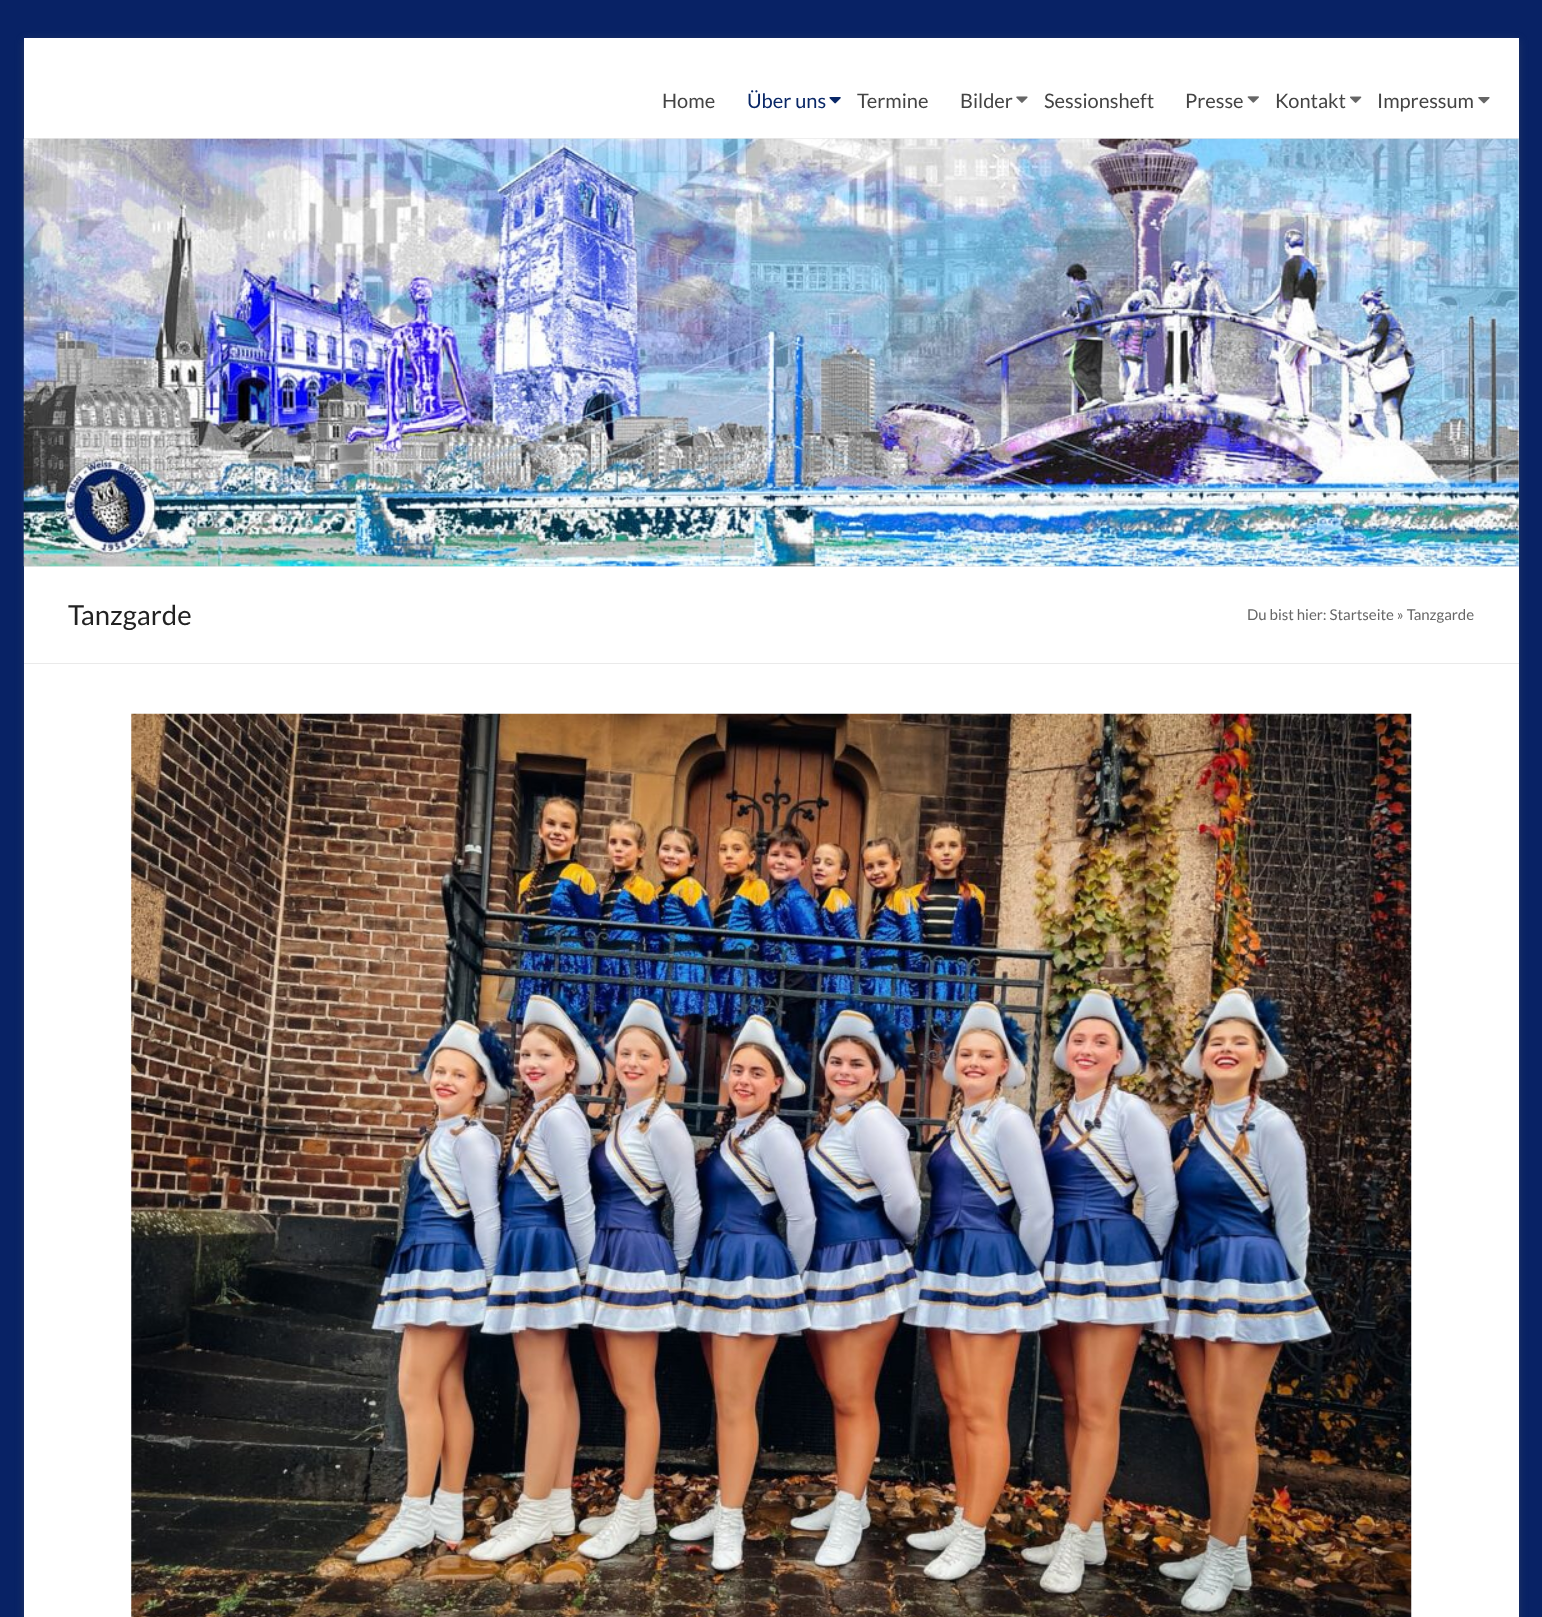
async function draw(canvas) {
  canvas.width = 1542
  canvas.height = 1617
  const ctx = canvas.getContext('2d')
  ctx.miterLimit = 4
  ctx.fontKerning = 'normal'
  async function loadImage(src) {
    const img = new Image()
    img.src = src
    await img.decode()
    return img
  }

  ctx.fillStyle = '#082265'
  ctx.fillRect(0, 0, 1542, 1617)
  ctx.fillStyle = '#6464644d'
  ctx.filter = 'blur(4px)'
  ctx.beginPath()
  ctx.rect(24, 40, 1495, 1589)
  ctx.fill()
  ctx.filter = 'none'
  ctx.fillStyle = '#fff'
  ctx.fillRect(24, 38, 1495, 1579)
  ctx.fillStyle = '#eaeaea'
  ctx.fillRect(24, 138, 1495, 1)
  ctx.font = '20px Lato'
  ctx.fillStyle = '#444'
  ctx.fillText('Home', 662, 108)
  ctx.fillStyle = '#092767'
  ctx.fillText('Über uns', 747, 108)
  ctx.drawImage(await loadImage('image0.png'), 829, 97, 12, 7)
  ctx.fillStyle = '#444'
  ctx.fillText('Termine', 857, 108)
  ctx.fillText('Bilder', 960, 108)
  ctx.drawImage(await loadImage('image1.png'), 1016, 96, 12, 7)
  ctx.fillText('Sessionsheft', 1044, 108)
  ctx.fillText('Presse', 1185, 108)
  ctx.drawImage(await loadImage('image2.png'), 1247, 96, 12, 7)
  ctx.fillText('Kontakt', 1275, 108)
  ctx.drawImage(await loadImage('image3.png'), 1350, 96, 12, 7)
  ctx.fillText('Impressum', 1377, 108)
  ctx.drawImage(await loadImage('image4.png'), 1478, 97, 12, 7)
  ctx.fillStyle = '#eaeaea'
  ctx.fillRect(24, 566, 1495, 1)
  ctx.drawImage(await loadImage('image5.png'), 23, 138, 1496, 429)
  ctx.fillRect(24, 663, 1495, 1)
  ctx.font = '27.5px Lato'
  ctx.fillStyle = '#222'
  ctx.fillText('Tanzgarde', 68, 625)
  ctx.font = '15px Lato'
  ctx.fillStyle = '#666'
  ctx.fillText('Du bist hier: Startseite » Tanzgarde', 1247, 620)
  ctx.drawImage(await loadImage('image6.png'), 131, 713, 1281, 904)
}

draw(document.querySelector('canvas'))
